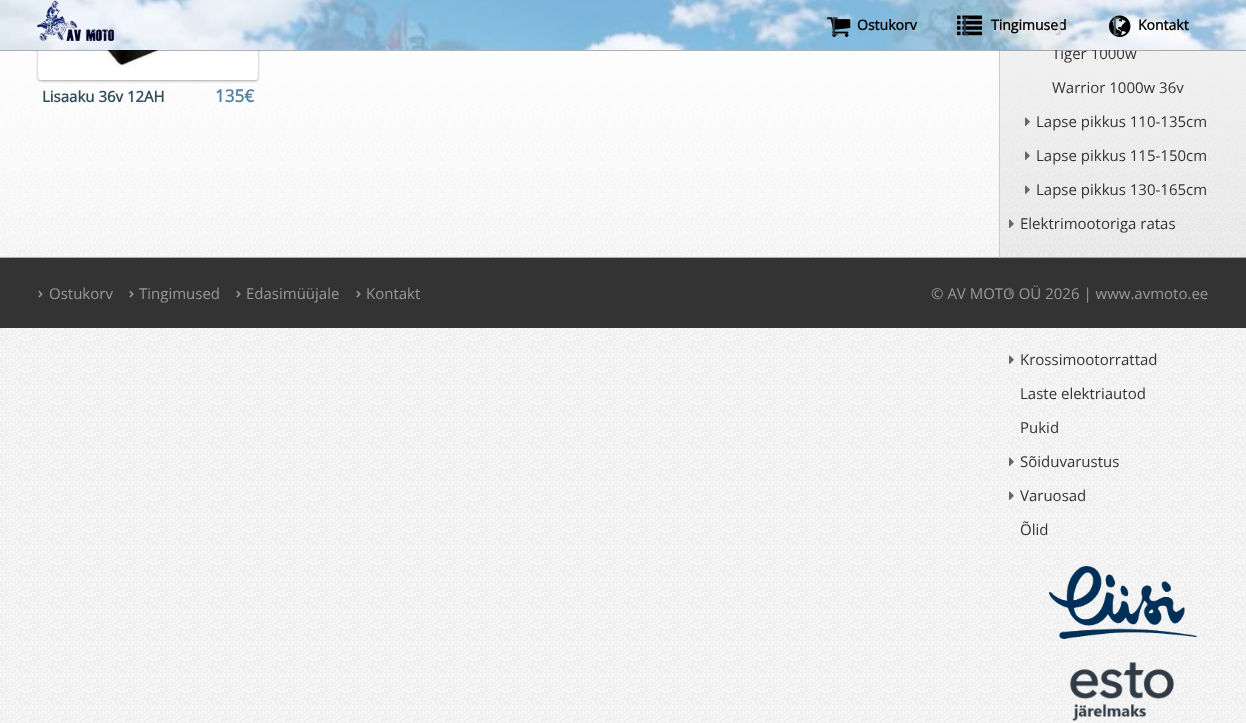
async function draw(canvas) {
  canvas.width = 1246
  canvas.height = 723
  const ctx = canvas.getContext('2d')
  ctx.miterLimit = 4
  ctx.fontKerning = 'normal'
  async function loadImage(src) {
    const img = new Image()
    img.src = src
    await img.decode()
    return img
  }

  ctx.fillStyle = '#fff'
  ctx.fillRect(0, 0, 1246, 723)
  ctx.drawImage(await loadImage('image0.png'), 0, 50, 1246, 673)
  ctx.fillStyle = '#0000004d'
  ctx.filter = 'blur(0.5px)'
  ctx.beginPath()
  ctx.rect(0, 257, 1246, 70)
  ctx.fill()
  ctx.filter = 'none'
  ctx.fillStyle = '#ccc'
  ctx.fillRect(999, 50, 1, 208)
  ctx.fillStyle = '#0000003d'
  ctx.filter = 'blur(1px)'
  ctx.beginPath()
  ctx.roundRect(38, -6, 220, 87, 3)
  ctx.fill()
  ctx.filter = 'none'
  ctx.fillStyle = '#0000001f'
  ctx.filter = 'blur(1.5px)'
  ctx.beginPath()
  ctx.roundRect(38, -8, 220, 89, 3)
  ctx.fill()
  ctx.filter = 'none'
  ctx.fillStyle = '#fff'
  ctx.beginPath()
  ctx.roundRect(38, -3, 220, 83, 3)
  ctx.fill()
  ctx.drawImage(await loadImage('image6.png'), 67, 50, 161, 17)
  ctx.fillStyle = '#0000000d'
  ctx.fillRect(1000, 50, 246, 208)
  ctx.fillStyle = '#0000004d'
  ctx.filter = 'blur(0.5px)'
  ctx.beginPath()
  ctx.rect(0, 1, 1246, 50)
  ctx.fill()
  ctx.filter = 'none'
  ctx.font = '15px Open Sans'
  ctx.fillStyle = '#333'
  ctx.fillText('Tiger 1000w', 1052, 59)
  ctx.drawImage(await loadImage('image1.png'), 0, 0, 1246, 50)
  ctx.drawImage(await loadImage('image2.png'), 37, 0, 77, 41)
  ctx.drawImage(await loadImage('image3.png'), 827, 17, 24, 20)
  ctx.font = 'bold 20px Open Sans'
  ctx.fillStyle = '#2f3d48'
  ctx.fillText('[', 831, 32)
  ctx.font = 'bold 14px Open Sans'
  ctx.fillStyle = '#000'
  ctx.fillText('Ostukorv', 857, 30)
  ctx.drawImage(await loadImage('image4.png'), 957, 15, 25, 21)
  ctx.font = 'bold 20px Open Sans'
  ctx.fillStyle = '#2d373f'
  ctx.fillText('[', 962, 32)
  ctx.font = 'bold 14px Open Sans'
  ctx.fillStyle = '#000'
  ctx.fillText('Tingimused', 991, 30)
  ctx.font = 'bold 20px Open Sans'
  ctx.fillStyle = '#cbcfd6'
  ctx.fillText(']', 1055, 32)
  ctx.drawImage(await loadImage('image5.png'), 1109, 15, 22, 22)
  ctx.fillStyle = '#4b5258'
  ctx.fillText('[', 1112, 32)
  ctx.font = 'bold 14px Open Sans'
  ctx.fillStyle = '#000'
  ctx.fillText('Kontakt', 1138, 30)
  ctx.font = 'bold 15px Open Sans'
  ctx.fillStyle = '#314d5d'
  ctx.fillText('Lisaaku 36v 12AH', 42, 102)
  ctx.font = 'bold 17px Open Sans'
  ctx.fillStyle = '#5484a0'
  ctx.fillText('135€', 215, 102)
  ctx.font = '15px Open Sans'
  ctx.fillStyle = '#333'
  ctx.fillText('Warrior 1000w 36v', 1052, 93)
  ctx.drawImage(await loadImage('image7.png'), 1025, 117, 5, 9)
  ctx.fillText('Lapse pikkus 110-135cm', 1036, 127)
  ctx.drawImage(await loadImage('image8.png'), 1025, 151, 5, 9)
  ctx.fillText('Lapse pikkus 115-150cm', 1036, 161)
  ctx.drawImage(await loadImage('image9.png'), 1025, 185, 5, 9)
  ctx.fillText('Lapse pikkus 130-165cm', 1036, 195)
  ctx.drawImage(await loadImage('image10.png'), 1009, 219, 5, 9)
  ctx.fillText('Elektrimootoriga ratas', 1020, 229)
  ctx.fillRect(0, 258, 1246, 70)
  ctx.fillStyle = '#999'
  ctx.fillText('© AV MOTO OÜ 2026 | www.avmoto.ee', 931, 299)
  ctx.drawImage(await loadImage('image11.png'), 1009, 287, 5, 9)
  ctx.drawImage(await loadImage('image12.png'), 1009, 355, 5, 9)
  ctx.fillStyle = '#333'
  ctx.fillText('Krossimootorrattad', 1020, 365)
  ctx.fillText('Laste elektriautod', 1020, 399)
  ctx.fillText('Pukid', 1020, 433)
  ctx.drawImage(await loadImage('image13.png'), 1009, 457, 5, 9)
  ctx.fillText('Sõiduvarustus', 1020, 467)
  ctx.drawImage(await loadImage('image14.png'), 1009, 491, 5, 9)
  ctx.fillText('Varuosad', 1020, 501)
  ctx.fillText('Õlid', 1020, 535)
  ctx.drawImage(await loadImage('image15.png'), 1049, 566, 148, 73)
  ctx.drawImage(await loadImage('image16.png'), 1070, 662, 104, 59)
  ctx.drawImage(await loadImage('image17.png'), 38, 290, 5, 8)
  ctx.fillStyle = '#999'
  ctx.fillText('Ostukorv', 49, 299)
  ctx.drawImage(await loadImage('image17.png'), 129, 290, 5, 8)
  ctx.fillText('Tingimused', 139, 299)
  ctx.drawImage(await loadImage('image17.png'), 236, 290, 5, 8)
  ctx.fillText('Edasimüüjale', 246, 299)
  ctx.drawImage(await loadImage('image17.png'), 356, 290, 5, 8)
  ctx.fillText('Kontakt', 366, 299)
}

draw(document.querySelector('canvas'))
